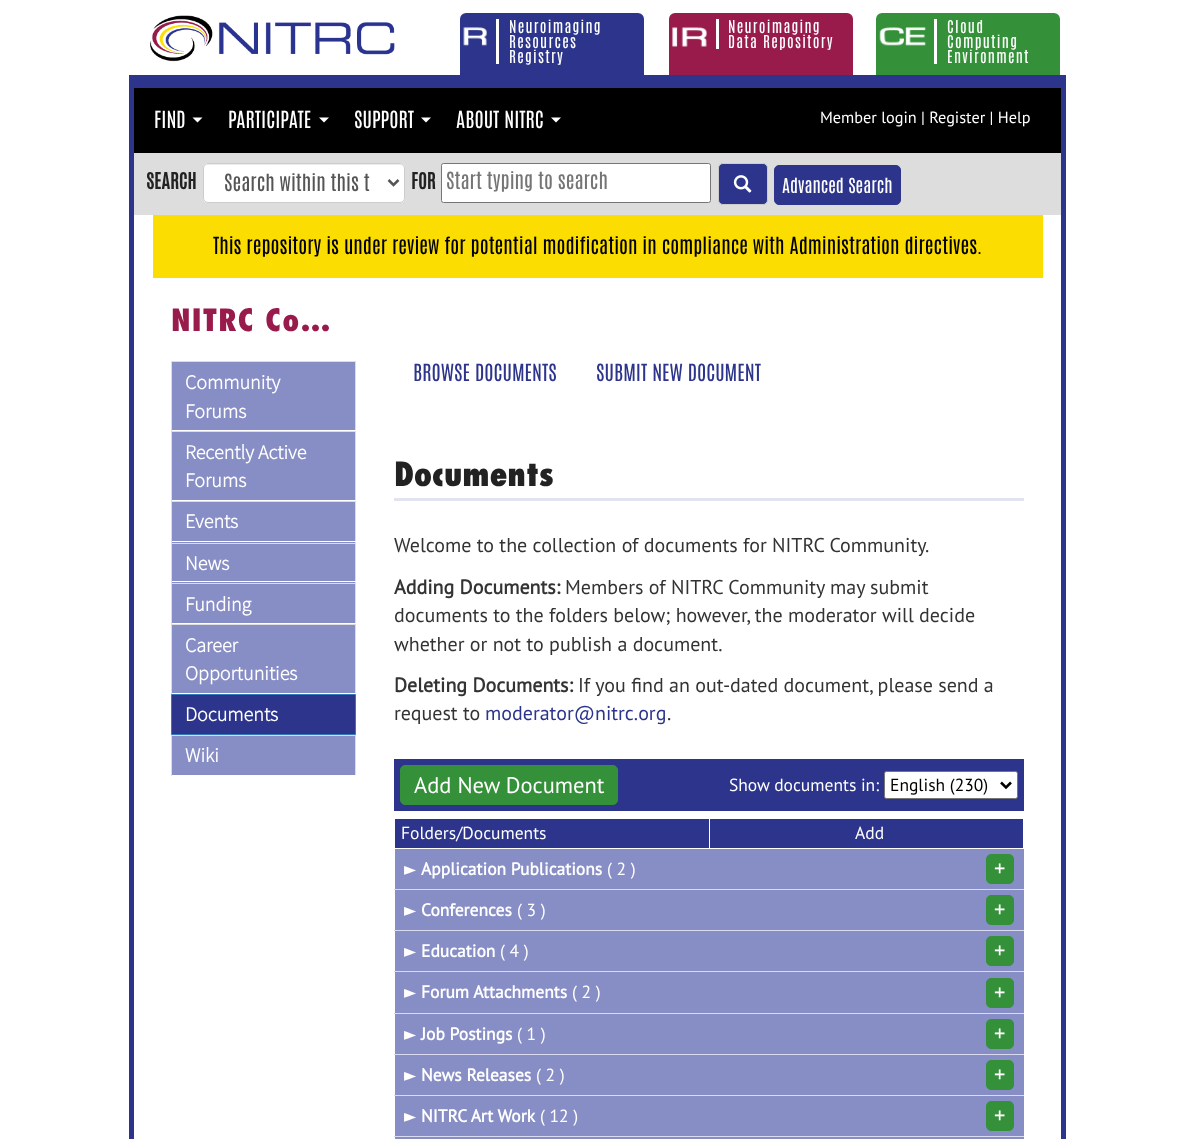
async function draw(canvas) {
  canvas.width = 1194
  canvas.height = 1139
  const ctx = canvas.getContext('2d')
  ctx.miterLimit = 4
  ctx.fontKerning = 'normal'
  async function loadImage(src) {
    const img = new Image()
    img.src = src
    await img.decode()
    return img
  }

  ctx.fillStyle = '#fff'
  ctx.fillRect(0, 0, 1194, 1139)
  ctx.drawImage(await loadImage('image0.png'), 150, 15, 245, 47)
  ctx.fillStyle = '#2c358b'
  ctx.beginPath()
  ctx.roundRect(460, 13, 184, 62, [6, 6, 0, 0])
  ctx.fill()
  ctx.drawImage(await loadImage('image1.png'), 463, 27, 24, 19)
  ctx.fillStyle = '#fff'
  ctx.fillRect(496, 19, 3, 45)
  ctx.letterSpacing = '1.25px'
  ctx.font = '15px Antonio'
  ctx.fillText('Neuroimaging', 509, 33)
  ctx.fillText('Resources', 509, 48)
  ctx.fillText('Registry', 509, 63)
  ctx.fillStyle = '#981b4c'
  ctx.beginPath()
  ctx.roundRect(669, 13, 184, 62, [6, 6, 0, 0])
  ctx.fill()
  ctx.drawImage(await loadImage('image2.png'), 672, 27, 35, 20)
  ctx.fillStyle = '#fff'
  ctx.fillRect(716, 19, 3, 30)
  ctx.fillText('Neuroimaging', 728, 33)
  ctx.fillText('Data Repository', 728, 48)
  ctx.fillStyle = '#359139'
  ctx.beginPath()
  ctx.roundRect(876, 13, 184, 62, [6, 6, 0, 0])
  ctx.fill()
  ctx.drawImage(await loadImage('image3.png'), 879, 27, 47, 19)
  ctx.fillStyle = '#fff'
  ctx.fillRect(934, 19, 3, 45)
  ctx.fillText('Cloud', 947, 33)
  ctx.fillText('Computing', 947, 48)
  ctx.fillText('Environment', 947, 63)
  ctx.fillStyle = '#2c358b'
  ctx.fillRect(134, 75, 927, 13)
  ctx.fillRect(1061, 75, 5, 1064)
  ctx.fillRect(129, 75, 5, 1064)
  ctx.fillStyle = '#000'
  ctx.fillRect(134, 88, 927, 65)
  ctx.letterSpacing = '0px'
  ctx.font = '20px Antonio'
  ctx.fillStyle = '#fff'
  ctx.fillText('FIND', 154, 128)
  ctx.beginPath()
  ctx.moveTo(192.5, 117.5)
  ctx.lineTo(202.5, 117.5)
  ctx.lineTo(197.5, 122.5)
  ctx.closePath()
  ctx.fill()
  ctx.fillText('PARTICIPATE', 228, 128)
  ctx.beginPath()
  ctx.moveTo(319, 117.5)
  ctx.lineTo(329, 117.5)
  ctx.lineTo(324, 122.5)
  ctx.closePath()
  ctx.fill()
  ctx.fillText('SUPPORT', 354, 128)
  ctx.beginPath()
  ctx.moveTo(421, 117.5)
  ctx.lineTo(431, 117.5)
  ctx.lineTo(426, 122.5)
  ctx.closePath()
  ctx.fill()
  ctx.fillText('ABOUT NITRC', 456, 128)
  ctx.beginPath()
  ctx.moveTo(551, 117.5)
  ctx.lineTo(561, 117.5)
  ctx.lineTo(556, 122.5)
  ctx.closePath()
  ctx.fill()
  ctx.font = '16.25px PT Sans'
  ctx.fillText('Member login | Register | Help', 820, 123)
  ctx.fillStyle = '#ddd'
  ctx.fillRect(134, 153, 927, 62)
  ctx.font = 'bold 19px Antonio'
  ctx.fillStyle = '#222'
  ctx.fillText('SEARCH', 146, 189)
  ctx.fillStyle = '#fff'
  ctx.beginPath()
  ctx.roundRect(203, 163, 202, 40, 5)
  ctx.fill()
  ctx.fillStyle = '#ececec'
  ctx.beginPath()
  ctx.moveTo(208, 165)
  ctx.lineTo(400, 165)
  ctx.bezierCurveTo(402, 165, 404, 167, 404, 169)
  ctx.lineTo(404, 168)
  ctx.bezierCurveTo(404, 166, 402, 164, 400, 164)
  ctx.lineTo(208, 164)
  ctx.bezierCurveTo(206, 164, 204, 166, 204, 168)
  ctx.lineTo(204, 169)
  ctx.bezierCurveTo(204, 167, 205, 165, 208, 165)
  ctx.closePath()
  ctx.fill()
  ctx.beginPath()
  ctx.roundRect(203.5, 163.5, 201, 39, 4.5)
  ctx.strokeStyle = '#ccc'
  ctx.stroke()
  ctx.beginPath()
  ctx.moveTo(388.5, 180)
  ctx.lineTo(393.5, 185)
  ctx.lineTo(398.5, 180)
  ctx.strokeStyle = '#555'
  ctx.lineWidth = 2.5
  ctx.stroke()
  ctx.font = '20px Antonio'
  ctx.fillStyle = '#555'
  ctx.fillText('Search within this t', 224, 191)
  ctx.font = 'bold 19px Antonio'
  ctx.fillStyle = '#222'
  ctx.fillText('FOR', 411, 189)
  ctx.fillStyle = '#fff'
  ctx.beginPath()
  ctx.roundRect(441.5, 163.5, 269, 39, 2)
  ctx.fill()
  ctx.strokeStyle = '#767676'
  ctx.lineWidth = 1
  ctx.stroke()
  ctx.font = '20px Antonio'
  ctx.fillStyle = '#757575'
  ctx.fillText('Start typing to search', 446, 189)
  ctx.fillStyle = '#2c358b'
  ctx.beginPath()
  ctx.roundRect(718.5, 163.5, 49, 41, 4.5)
  ctx.fill()
  ctx.strokeStyle = '#ccc'
  ctx.stroke()
  ctx.drawImage(await loadImage('image4.png'), 733, 175, 19, 18)
  ctx.beginPath()
  ctx.roundRect(774.5, 165.5, 126, 39, 4.5)
  ctx.fill()
  ctx.strokeStyle = '#2c358b'
  ctx.stroke()
  ctx.font = '17.5px Antonio'
  ctx.fillStyle = '#fff'
  ctx.fillText('Advanced Search', 782, 193)
  ctx.fillStyle = '#fcdd01'
  ctx.fillRect(153, 215, 890, 63)
  ctx.font = '20px Antonio'
  ctx.fillStyle = '#000'
  ctx.fillText('This repository is under review for potential modification in compliance with Administration directives.', 213, 254)
  ctx.letterSpacing = '1.25px'
  ctx.font = '800 30px Futura'
  ctx.fillStyle = '#981b4c'
  ctx.fillText('NITRC Co…', 171, 331)
  ctx.fillStyle = '#878dc5'
  ctx.fillRect(172, 362, 183, 68)
  ctx.fillStyle = '#ddd'
  ctx.fillRect(171, 361, 185, 1)
  ctx.fillRect(355, 361, 1, 70)
  ctx.fillStyle = '#fff'
  ctx.fillRect(355, 430, 1, 1)
  ctx.fillStyle = '#ddd'
  ctx.fillRect(171, 361, 1, 70)
  ctx.letterSpacing = '0px'
  ctx.font = 'bold 20px Source Sans Pro'
  ctx.fillStyle = '#fff'
  ctx.fillText('Community', 185, 389)
  ctx.fillText('Forums', 185, 418)
  ctx.fillStyle = '#878dc5'
  ctx.fillRect(172, 432, 183, 68)
  ctx.fillStyle = '#ddd'
  ctx.fillRect(171, 431, 185, 1)
  ctx.fillRect(355, 431, 1, 70)
  ctx.fillStyle = '#fff'
  ctx.fillRect(355, 500, 1, 1)
  ctx.fillStyle = '#ddd'
  ctx.fillRect(171, 431, 1, 70)
  ctx.fillStyle = '#fff'
  ctx.fillText('Recently Active', 185, 459)
  ctx.fillText('Forums', 185, 487)
  ctx.fillStyle = '#878dc5'
  ctx.fillRect(172, 502, 183, 41)
  ctx.fillStyle = '#ddd'
  ctx.fillRect(171, 501, 185, 1)
  ctx.fillRect(355, 501, 1, 42)
  ctx.fillStyle = '#fff'
  ctx.fillRect(171, 541, 185, 1)
  ctx.fillStyle = '#ddd'
  ctx.fillRect(171, 501, 1, 42)
  ctx.fillStyle = '#fff'
  ctx.fillText('Events', 185, 528)
  ctx.fillStyle = '#878dc5'
  ctx.fillRect(172, 544, 183, 39)
  ctx.fillStyle = '#ddd'
  ctx.fillRect(171, 543, 185, 1)
  ctx.fillRect(355, 543, 1, 40)
  ctx.fillStyle = '#fff'
  ctx.fillRect(171, 581, 185, 1)
  ctx.fillStyle = '#ddd'
  ctx.fillRect(171, 543, 1, 40)
  ctx.fillStyle = '#fff'
  ctx.fillText('News', 185, 570)
  ctx.fillStyle = '#878dc5'
  ctx.fillRect(172, 584, 183, 39)
  ctx.fillStyle = '#ddd'
  ctx.fillRect(171, 583, 185, 1)
  ctx.fillRect(355, 583, 1, 41)
  ctx.fillStyle = '#fff'
  ctx.fillRect(355, 623, 1, 1)
  ctx.fillStyle = '#ddd'
  ctx.fillRect(171, 583, 1, 41)
  ctx.fillStyle = '#fff'
  ctx.fillText('Funding', 185, 611)
  ctx.fillStyle = '#878dc5'
  ctx.fillRect(172, 625, 183, 68)
  ctx.fillStyle = '#ddd'
  ctx.fillRect(171, 624, 185, 1)
  ctx.fillRect(355, 624, 1, 70)
  ctx.fillStyle = '#fff'
  ctx.fillRect(355, 693, 1, 1)
  ctx.fillStyle = '#ddd'
  ctx.fillRect(171, 624, 1, 70)
  ctx.fillStyle = '#fff'
  ctx.fillText('Career', 185, 652)
  ctx.fillText('Opportunities', 185, 680)
  ctx.fillStyle = '#2c358b'
  ctx.beginPath()
  ctx.rect(171.5, 694.5, 184, 40)
  ctx.fill()
  ctx.strokeStyle = '#337ab7'
  ctx.stroke()
  ctx.fillStyle = '#fff'
  ctx.fillText('Documents', 185, 721)
  ctx.fillStyle = '#878dc5'
  ctx.fillRect(172, 736, 183, 39)
  ctx.fillStyle = '#ddd'
  ctx.fillRect(171, 735, 185, 1)
  ctx.fillRect(355, 735, 1, 41)
  ctx.fillStyle = '#fff'
  ctx.fillRect(355, 775, 1, 1)
  ctx.fillStyle = '#ddd'
  ctx.fillRect(171, 735, 1, 41)
  ctx.fillStyle = '#fff'
  ctx.fillText('Wiki', 185, 762)
  ctx.font = '20px Antonio'
  ctx.fillStyle = '#2c358b'
  ctx.fillText('BROWSE DOCUMENTS', 413, 381)
  ctx.fillText('SUBMIT NEW DOCUMENT', 596, 381)
  ctx.fillStyle = '#e2e2f1'
  ctx.fillRect(394, 498, 630, 3)
  ctx.font = '800 32.5px Futura'
  ctx.fillStyle = '#222'
  ctx.fillText('Documents', 394, 486)
  ctx.font = '20px PT Sans'
  ctx.fillStyle = '#333'
  ctx.fillText('Welcome to the collection of documents for NITRC Community.', 394, 552)
  ctx.font = 'bold 20px PT Sans'
  ctx.fillText('Adding Documents:', 394, 594)
  ctx.font = '20px PT Sans'
  ctx.fillText('Members of NITRC Community may submit', 565, 594)
  ctx.fillText('documents to the folders below; however, the moderator will decide', 394, 622)
  ctx.fillText('whether or not to publish a document.', 394, 651)
  ctx.font = 'bold 20px PT Sans'
  ctx.fillText('Deleting Documents:', 394, 692)
  ctx.font = '20px PT Sans'
  ctx.fillText('If you find an out-dated document, please send a', 578, 692)
  ctx.fillText('request to', 394, 720)
  ctx.fillStyle = '#2c358b'
  ctx.fillText('moderator@nitrc.org', 485, 720)
  ctx.fillStyle = '#333'
  ctx.fillText('.', 667, 720)
  ctx.fillStyle = '#2c358b'
  ctx.fillRect(394, 759, 630, 52)
  ctx.fillStyle = '#359139'
  ctx.beginPath()
  ctx.roundRect(400.5, 765.5, 217, 39, 4.5)
  ctx.fill()
  ctx.strokeStyle = '#359139'
  ctx.stroke()
  ctx.font = '22.5px PT Sans'
  ctx.fillStyle = '#fff'
  ctx.fillText('Add New Document', 414, 793)
  ctx.font = '17.5px PT Sans'
  ctx.fillText('Show documents in:', 729, 791)
  ctx.beginPath()
  ctx.roundRect(884.5, 771.5, 133, 27, 2)
  ctx.fill()
  ctx.strokeStyle = '#767676'
  ctx.stroke()
  ctx.beginPath()
  ctx.moveTo(1001, 782.5)
  ctx.lineTo(1006, 787.5)
  ctx.lineTo(1011, 782.5)
  ctx.strokeStyle = '#000'
  ctx.lineWidth = 2.5
  ctx.stroke()
  ctx.fillStyle = '#000'
  ctx.fillText('English (230)', 890, 791)
  ctx.fillStyle = '#2c358b'
  ctx.fillRect(395, 819, 628, 29)
  ctx.fillStyle = '#fff'
  ctx.fillText('Folders/Documents', 401, 839)
  ctx.fillRect(709, 818, 1, 31)
  ctx.fillText('Add', 855, 839)
  ctx.fillStyle = '#878dc5'
  ctx.fillRect(395, 849, 629, 40)
  ctx.font = '17.5px DejaVu Sans'
  ctx.fillStyle = '#fff'
  ctx.fillText('►', 404, 875)
  ctx.font = 'bold 17.5px PT Sans'
  ctx.fillText('Application Publications', 421, 875)
  ctx.font = '17.5px PT Sans'
  ctx.fillText('( 2 )', 607, 875)
  ctx.fillStyle = '#359139'
  ctx.beginPath()
  ctx.roundRect(986.5, 854.5, 27, 29, 4.5)
  ctx.fill()
  ctx.strokeStyle = '#359139'
  ctx.lineWidth = 1
  ctx.stroke()
  ctx.font = '22.5px PT Sans'
  ctx.fillStyle = '#fff'
  ctx.fillText('+', 994, 876)
  ctx.fillStyle = '#878dc5'
  ctx.fillRect(395, 890, 629, 40)
  ctx.fillStyle = '#dadaee'
  ctx.fillRect(394, 889, 630, 1)
  ctx.font = '17.5px DejaVu Sans'
  ctx.fillStyle = '#fff'
  ctx.fillText('►', 404, 916)
  ctx.font = 'bold 17.5px PT Sans'
  ctx.fillText('Conferences', 421, 916)
  ctx.font = '17.5px PT Sans'
  ctx.fillText('( 3 )', 517, 916)
  ctx.fillStyle = '#359139'
  ctx.beginPath()
  ctx.roundRect(986.5, 895.5, 27, 29, 4.5)
  ctx.fill()
  ctx.stroke()
  ctx.font = '22.5px PT Sans'
  ctx.fillStyle = '#fff'
  ctx.fillText('+', 994, 917)
  ctx.fillStyle = '#878dc5'
  ctx.fillRect(395, 931, 629, 40)
  ctx.fillStyle = '#dadaee'
  ctx.fillRect(394, 930, 630, 1)
  ctx.font = '17.5px DejaVu Sans'
  ctx.fillStyle = '#fff'
  ctx.fillText('►', 404, 957)
  ctx.font = 'bold 17.5px PT Sans'
  ctx.fillText('Education', 421, 957)
  ctx.font = '17.5px PT Sans'
  ctx.fillText('( 4 )', 500, 957)
  ctx.fillStyle = '#359139'
  ctx.beginPath()
  ctx.roundRect(986.5, 936.5, 27, 29, 4.5)
  ctx.fill()
  ctx.stroke()
  ctx.font = '22.5px PT Sans'
  ctx.fillStyle = '#fff'
  ctx.fillText('+', 994, 958)
  ctx.fillStyle = '#878dc5'
  ctx.fillRect(395, 972, 629, 41)
  ctx.fillStyle = '#dadaee'
  ctx.fillRect(394, 971, 630, 1)
  ctx.font = '17.5px DejaVu Sans'
  ctx.fillStyle = '#fff'
  ctx.fillText('►', 404, 998)
  ctx.font = 'bold 17.5px PT Sans'
  ctx.fillText('Forum Attachments', 421, 998)
  ctx.font = '17.5px PT Sans'
  ctx.fillText('( 2 )', 572, 998)
  ctx.fillStyle = '#359139'
  ctx.beginPath()
  ctx.roundRect(986.5, 978.5, 27, 29, 4.5)
  ctx.fill()
  ctx.stroke()
  ctx.font = '22.5px PT Sans'
  ctx.fillStyle = '#fff'
  ctx.fillText('+', 994, 1000)
  ctx.fillStyle = '#878dc5'
  ctx.fillRect(395, 1014, 629, 40)
  ctx.fillStyle = '#dadaee'
  ctx.fillRect(394, 1013, 630, 1)
  ctx.font = '17.5px DejaVu Sans'
  ctx.fillStyle = '#fff'
  ctx.fillText('►', 404, 1040)
  ctx.font = 'bold 17.5px PT Sans'
  ctx.fillText('Job Postings', 421, 1040)
  ctx.font = '17.5px PT Sans'
  ctx.fillText('( 1 )', 517, 1040)
  ctx.fillStyle = '#359139'
  ctx.beginPath()
  ctx.roundRect(986.5, 1019.5, 27, 29, 4.5)
  ctx.fill()
  ctx.stroke()
  ctx.font = '22.5px PT Sans'
  ctx.fillStyle = '#fff'
  ctx.fillText('+', 994, 1041)
  ctx.fillStyle = '#878dc5'
  ctx.fillRect(395, 1055, 629, 40)
  ctx.fillStyle = '#dadaee'
  ctx.fillRect(394, 1054, 630, 1)
  ctx.font = '17.5px DejaVu Sans'
  ctx.fillStyle = '#fff'
  ctx.fillText('►', 404, 1081)
  ctx.font = 'bold 17.5px PT Sans'
  ctx.fillText('News Releases', 421, 1081)
  ctx.font = '17.5px PT Sans'
  ctx.fillText('( 2 )', 536, 1081)
  ctx.fillStyle = '#359139'
  ctx.beginPath()
  ctx.roundRect(986.5, 1060.5, 27, 29, 4.5)
  ctx.fill()
  ctx.stroke()
  ctx.font = '22.5px PT Sans'
  ctx.fillStyle = '#fff'
  ctx.fillText('+', 994, 1082)
  ctx.fillStyle = '#878dc5'
  ctx.fillRect(395, 1096, 629, 40)
  ctx.fillStyle = '#dadaee'
  ctx.fillRect(394, 1095, 630, 1)
  ctx.font = '17.5px DejaVu Sans'
  ctx.fillStyle = '#fff'
  ctx.fillText('►', 404, 1122)
  ctx.font = 'bold 17.5px PT Sans'
  ctx.fillText('NITRC Art Work', 421, 1122)
  ctx.font = '17.5px PT Sans'
  ctx.fillText('( 12 )', 540, 1122)
  ctx.fillStyle = '#359139'
  ctx.beginPath()
  ctx.roundRect(986.5, 1101.5, 27, 29, 4.5)
  ctx.fill()
  ctx.stroke()
  ctx.font = '22.5px PT Sans'
  ctx.fillStyle = '#fff'
  ctx.fillText('+', 994, 1123)
  ctx.fillStyle = '#878dc5'
  ctx.fillRect(395, 1137, 629, 2)
  ctx.fillStyle = '#dadaee'
  ctx.fillRect(394, 1136, 630, 1)
}

draw(document.querySelector('canvas'))
